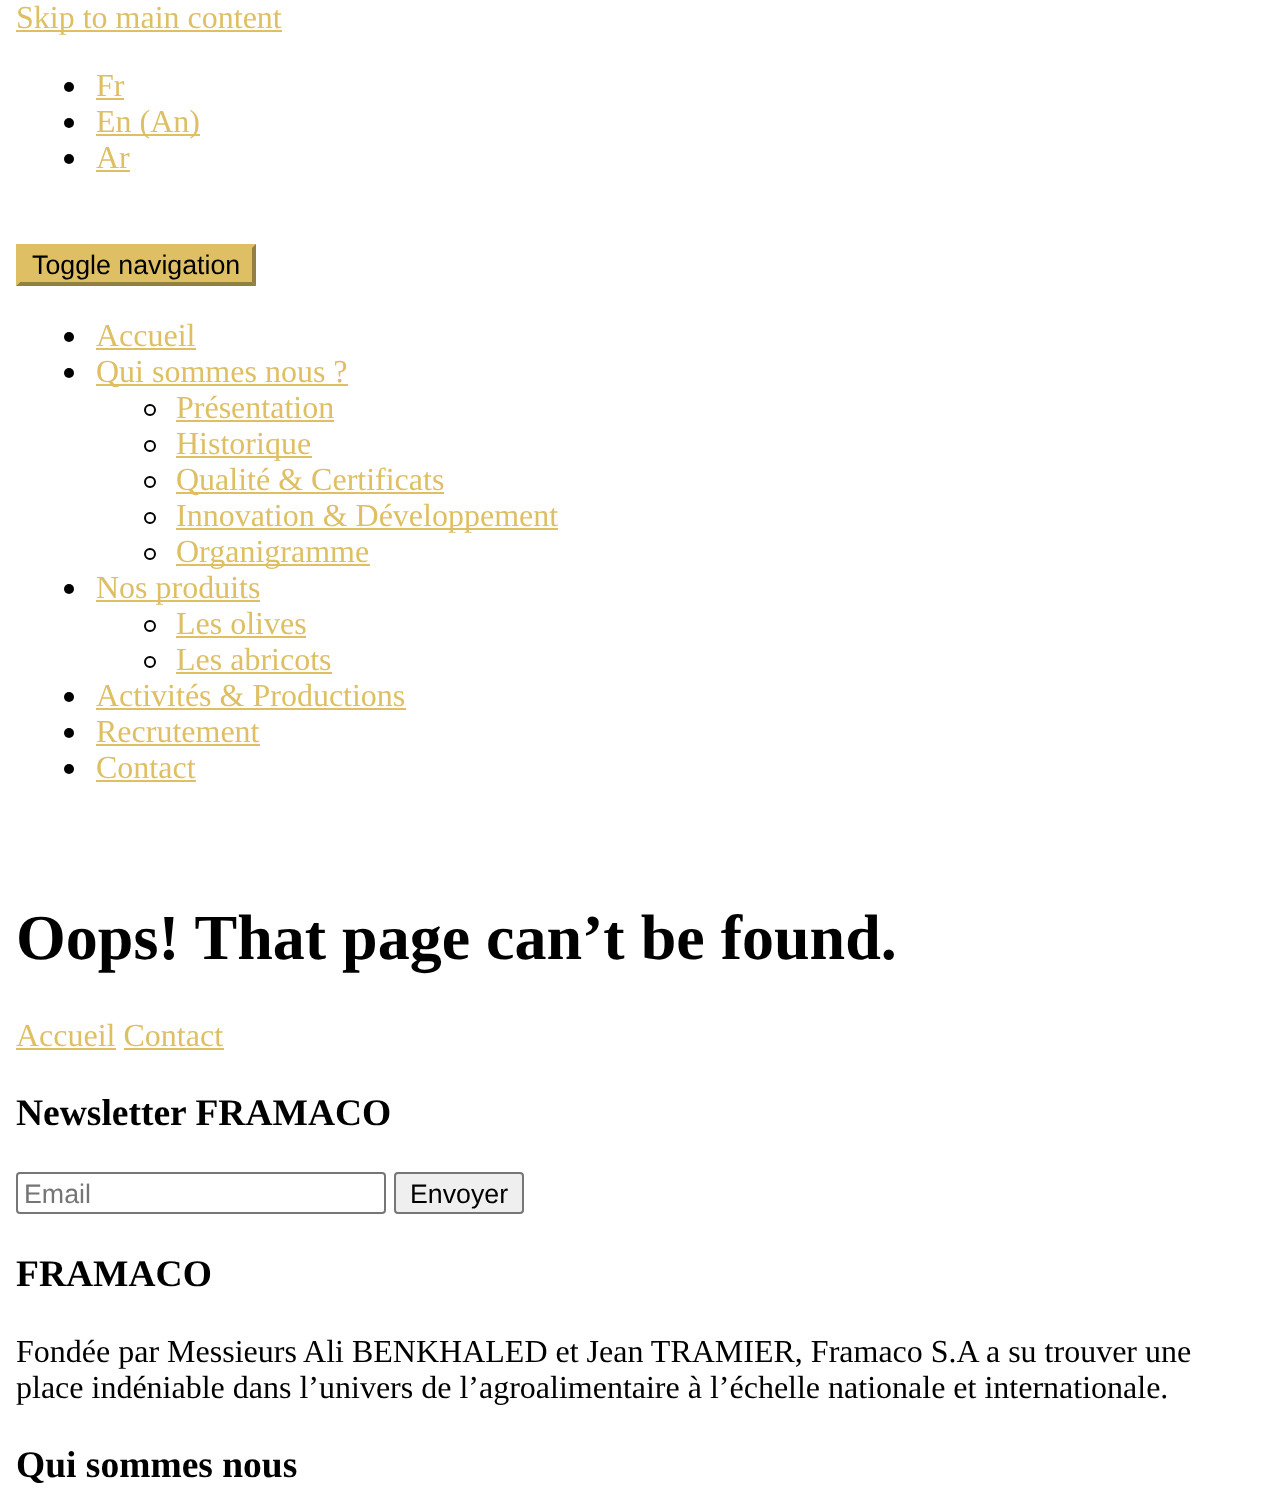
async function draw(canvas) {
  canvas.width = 1263
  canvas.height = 1488
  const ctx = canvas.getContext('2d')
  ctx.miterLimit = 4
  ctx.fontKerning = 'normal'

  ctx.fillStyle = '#fff'
  ctx.fillRect(0, 0, 1263, 1488)
  ctx.fillStyle = '#debf63'
  ctx.fillRect(16, 30, 266, 2)
  ctx.font = '32px Liberation Serif'
  ctx.fillText('Skip to main content', 16, 28)
  ctx.fillStyle = '#000'
  ctx.beginPath()
  ctx.arc(69, 87, 5, 0, 2 * Math.PI)
  ctx.fill()
  ctx.fillStyle = '#debf63'
  ctx.fillText('Fr', 96, 96)
  ctx.fillRect(96, 98, 28, 2)
  ctx.fillStyle = '#000'
  ctx.beginPath()
  ctx.arc(69, 123, 5, 0, 2 * Math.PI)
  ctx.fill()
  ctx.fillStyle = '#debf63'
  ctx.fillRect(96, 134, 104, 2)
  ctx.fillText('En (An)', 96, 132)
  ctx.fillStyle = '#000'
  ctx.beginPath()
  ctx.arc(69, 159, 5, 0, 2 * Math.PI)
  ctx.fill()
  ctx.fillStyle = '#debf63'
  ctx.fillText('Ar', 96, 168)
  ctx.fillRect(96, 170, 34, 2)
  ctx.fillRect(16, 244, 240, 42)
  ctx.fillStyle = '#947f42'
  ctx.beginPath()
  ctx.moveTo(256, 244)
  ctx.lineTo(256, 286)
  ctx.lineTo(252, 282)
  ctx.lineTo(252, 248)
  ctx.closePath()
  ctx.fill()
  ctx.beginPath()
  ctx.moveTo(256, 286)
  ctx.lineTo(16, 286)
  ctx.lineTo(20, 282)
  ctx.lineTo(252, 282)
  ctx.closePath()
  ctx.fill()
  ctx.fillStyle = '#debf63'
  ctx.beginPath()
  ctx.moveTo(16, 286)
  ctx.lineTo(16, 244)
  ctx.lineTo(20, 248)
  ctx.lineTo(20, 282)
  ctx.closePath()
  ctx.fill()
  ctx.font = '26.75px Liberation Sans'
  ctx.fillStyle = '#000'
  ctx.fillText('Toggle navigation', 32, 274)
  ctx.beginPath()
  ctx.arc(69, 337, 5, 0, 2 * Math.PI)
  ctx.fill()
  ctx.font = '32px Liberation Serif'
  ctx.fillStyle = '#debf63'
  ctx.fillText('Accueil', 96, 346)
  ctx.fillRect(96, 348, 100, 2)
  ctx.fillStyle = '#000'
  ctx.beginPath()
  ctx.arc(69, 373, 5, 0, 2 * Math.PI)
  ctx.fill()
  ctx.fillStyle = '#debf63'
  ctx.fillRect(96, 384, 252, 2)
  ctx.fillText('Qui sommes nous ?', 96, 382)
  ctx.beginPath()
  ctx.arc(150, 410, 5, 0, 2 * Math.PI)
  ctx.strokeStyle = '#000'
  ctx.lineWidth = 2
  ctx.stroke()
  ctx.fillText('Présentation', 176, 418)
  ctx.fillRect(176, 420, 158, 2)
  ctx.beginPath()
  ctx.arc(150, 446, 5, 0, 2 * Math.PI)
  ctx.stroke()
  ctx.fillRect(176, 456, 136, 2)
  ctx.fillText('Historique', 176, 454)
  ctx.beginPath()
  ctx.arc(150, 482, 5, 0, 2 * Math.PI)
  ctx.stroke()
  ctx.fillRect(176, 492, 268, 2)
  ctx.fillText('Qualité & Certificats', 176, 490)
  ctx.beginPath()
  ctx.arc(150, 518, 5, 0, 2 * Math.PI)
  ctx.stroke()
  ctx.fillRect(176, 528, 382, 2)
  ctx.fillText('Innovation & Développement', 176, 526)
  ctx.beginPath()
  ctx.arc(150, 554, 5, 0, 2 * Math.PI)
  ctx.stroke()
  ctx.fillRect(176, 564, 194, 2)
  ctx.fillText('Organigramme', 176, 562)
  ctx.fillStyle = '#000'
  ctx.beginPath()
  ctx.arc(69, 589, 5, 0, 2 * Math.PI)
  ctx.fill()
  ctx.fillStyle = '#debf63'
  ctx.fillRect(96, 600, 164, 2)
  ctx.fillText('Nos produits', 96, 598)
  ctx.beginPath()
  ctx.arc(150, 626, 5, 0, 2 * Math.PI)
  ctx.stroke()
  ctx.fillText('Les olives', 176, 634)
  ctx.fillRect(176, 636, 130, 2)
  ctx.beginPath()
  ctx.arc(150, 662, 5, 0, 2 * Math.PI)
  ctx.stroke()
  ctx.fillText('Les abricots', 176, 670)
  ctx.fillRect(176, 672, 156, 2)
  ctx.fillStyle = '#000'
  ctx.beginPath()
  ctx.arc(69, 697, 5, 0, 2 * Math.PI)
  ctx.fill()
  ctx.fillStyle = '#debf63'
  ctx.fillText('Activités & Productions', 96, 706)
  ctx.fillRect(96, 708, 310, 2)
  ctx.fillStyle = '#000'
  ctx.beginPath()
  ctx.arc(69, 733, 5, 0, 2 * Math.PI)
  ctx.fill()
  ctx.fillStyle = '#debf63'
  ctx.fillText('Recrutement', 96, 742)
  ctx.fillRect(96, 744, 164, 2)
  ctx.fillStyle = '#000'
  ctx.beginPath()
  ctx.arc(69, 769, 5, 0, 2 * Math.PI)
  ctx.fill()
  ctx.fillStyle = '#debf63'
  ctx.fillText('Contact', 96, 778)
  ctx.fillRect(96, 780, 100, 2)
  ctx.font = 'bold 64px Liberation Serif'
  ctx.fillStyle = '#000'
  ctx.fillText('Oops! That page can’t be found.', 16, 959)
  ctx.font = '32px Liberation Serif'
  ctx.fillStyle = '#debf63'
  ctx.fillText('Accueil Contact', 16, 1046)
  ctx.fillRect(16, 1048, 100, 2)
  ctx.fillRect(124, 1048, 100, 2)
  ctx.font = 'bold 37.5px Liberation Serif'
  ctx.fillStyle = '#000'
  ctx.fillText('Newsletter FRAMACO', 16, 1125)
  ctx.beginPath()
  ctx.roundRect(17, 1173, 368, 40, 3)
  ctx.strokeStyle = '#767676'
  ctx.stroke()
  ctx.font = '26.75px Liberation Sans'
  ctx.fillStyle = '#757575'
  ctx.fillText('Email', 24, 1203)
  ctx.fillStyle = '#efefef'
  ctx.beginPath()
  ctx.roundRect(395, 1173, 128, 40, 3)
  ctx.fill()
  ctx.stroke()
  ctx.fillStyle = '#000'
  ctx.fillText('Envoyer', 410, 1203)
  ctx.font = 'bold 37.5px Liberation Serif'
  ctx.fillText('FRAMACO', 16, 1286)
  ctx.font = '32px Liberation Serif'
  ctx.fillText('Fondée par Messieurs Ali BENKHALED et Jean TRAMIER, Framaco S.A a su trouver une', 16, 1362)
  ctx.fillText('place indéniable dans l’univers de l’agroalimentaire à l’échelle nationale et internationale.', 16, 1398)
  ctx.font = 'bold 37.5px Liberation Serif'
  ctx.fillText('Qui sommes nous', 16, 1477)
}

draw(document.querySelector('canvas'))
